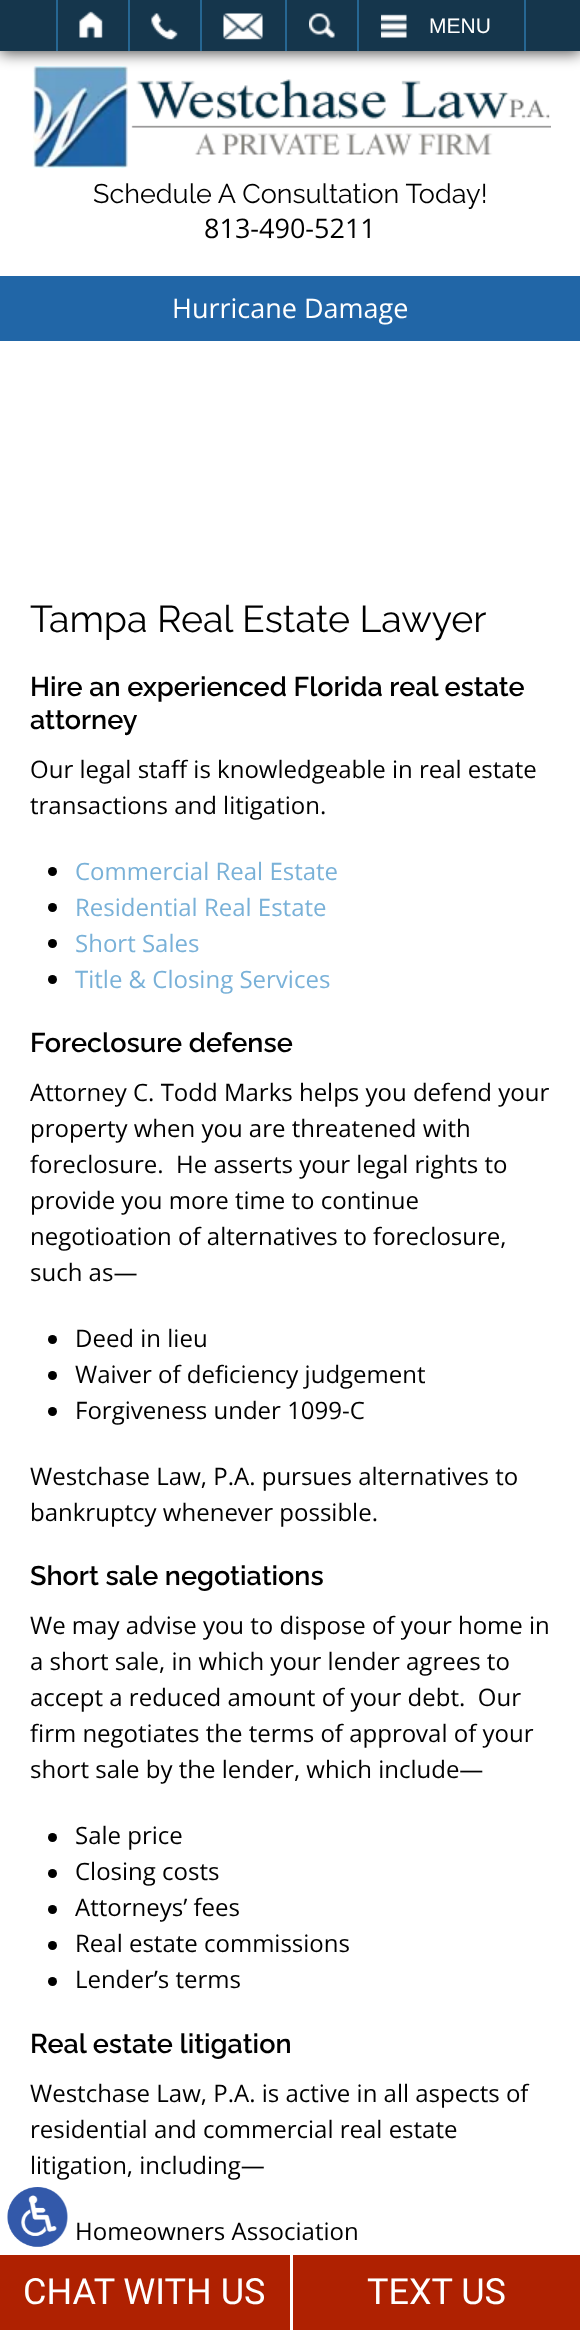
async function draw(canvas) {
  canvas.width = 580
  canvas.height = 2330
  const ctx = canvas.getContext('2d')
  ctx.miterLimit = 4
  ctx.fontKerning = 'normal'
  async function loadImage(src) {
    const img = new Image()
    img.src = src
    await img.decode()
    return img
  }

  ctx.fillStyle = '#fff'
  ctx.fillRect(0, 0, 580, 2330)
  ctx.drawImage(await loadImage('image5.png'), 33, 66, 518, 102)
  ctx.fillStyle = '#000000b3'
  ctx.filter = 'blur(7.5px)'
  ctx.beginPath()
  ctx.rect(0, 2, 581, 51)
  ctx.fill()
  ctx.filter = 'none'
  ctx.fillStyle = '#15364c'
  ctx.fillRect(0, 0, 580, 51)
  ctx.fillStyle = '#266793'
  ctx.fillRect(128, 0, 2, 51)
  ctx.fillRect(56, 0, 2, 51)
  ctx.drawImage(await loadImage('image0.png'), 79, 11, 24, 27)
  ctx.fillRect(200, 0, 2, 51)
  ctx.drawImage(await loadImage('image1.png'), 151, 13, 27, 27)
  ctx.fillRect(285, 0, 2, 51)
  ctx.drawImage(await loadImage('image2.png'), 223, 13, 40, 27)
  ctx.fillRect(357, 0, 2, 51)
  ctx.drawImage(await loadImage('image3.png'), 309, 13, 26, 25)
  ctx.fillRect(524, 0, 2, 51)
  ctx.drawImage(await loadImage('image4.png'), 381, 14, 26, 24)
  ctx.font = '21px Liberation Sans'
  ctx.fillStyle = '#fff'
  ctx.fillText('MENU', 429, 33)
  ctx.font = '27px Raleway'
  ctx.fillStyle = '#000'
  ctx.fillText('Schedule A Consultation Today!', 93, 203)
  ctx.font = '27px Open Sans'
  ctx.fillText('813-490-5211', 204, 238)
  ctx.fillStyle = '#2166a7'
  ctx.fillRect(0, 276, 580, 65)
  ctx.fillStyle = '#fff'
  ctx.fillText('Hurricane Damage', 172, 318)
  ctx.font = '37.5px Raleway'
  ctx.fillStyle = '#000'
  ctx.fillText('Tampa Real Estate Lawyer', 30, 632)
  ctx.font = '600 27px Raleway'
  ctx.fillText('Hire an experienced Florida real estate', 30, 696)
  ctx.fillText('attorney', 30, 729)
  ctx.font = '24px Open Sans'
  ctx.fillText('Our legal staff is knowledgeable in real estate', 30, 778)
  ctx.fillText('transactions and litigation.', 30, 814)
  ctx.beginPath()
  ctx.arc(52.5, 871.5, 4.5, 0, 2 * Math.PI)
  ctx.fill()
  ctx.fillStyle = '#79b1d8'
  ctx.fillText('Commercial Real Estate', 75, 880)
  ctx.fillStyle = '#000'
  ctx.beginPath()
  ctx.arc(52.5, 907.5, 4.5, 0, 2 * Math.PI)
  ctx.fill()
  ctx.fillStyle = '#79b1d8'
  ctx.fillText('Residential Real Estate', 75, 916)
  ctx.fillStyle = '#000'
  ctx.beginPath()
  ctx.arc(52.5, 943.5, 4.5, 0, 2 * Math.PI)
  ctx.fill()
  ctx.fillStyle = '#79b1d8'
  ctx.fillText('Short Sales', 75, 952)
  ctx.fillStyle = '#000'
  ctx.beginPath()
  ctx.arc(52.5, 979.5, 4.5, 0, 2 * Math.PI)
  ctx.fill()
  ctx.fillStyle = '#79b1d8'
  ctx.fillText('Title & Closing Services', 75, 988)
  ctx.font = '600 27px Raleway'
  ctx.fillStyle = '#000'
  ctx.fillText('Foreclosure defense', 30, 1052)
  ctx.font = '24px Open Sans'
  ctx.fillText('Attorney C. Todd Marks helps you defend your', 30, 1101)
  ctx.fillText('property when you are threatened with', 30, 1137)
  ctx.fillText('foreclosure.  He asserts your legal rights to', 30, 1173)
  ctx.fillText('provide you more time to continue', 30, 1209)
  ctx.fillText('negotioation of alternatives to foreclosure,', 30, 1245)
  ctx.fillText('such as—', 30, 1281)
  ctx.beginPath()
  ctx.arc(52.5, 1339.5, 4.5, 0, 2 * Math.PI)
  ctx.fill()
  ctx.fillText('Deed in lieu', 75, 1347)
  ctx.beginPath()
  ctx.arc(52.5, 1375.5, 4.5, 0, 2 * Math.PI)
  ctx.fill()
  ctx.fillText('Waiver of deficiency judgement', 75, 1383)
  ctx.beginPath()
  ctx.arc(52.5, 1411.5, 4.5, 0, 2 * Math.PI)
  ctx.fill()
  ctx.fillText('Forgiveness under 1099-C', 75, 1419)
  ctx.fillText('Westchase Law, P.A. pursues alternatives to', 30, 1485)
  ctx.fillText('bankruptcy whenever possible.', 30, 1521)
  ctx.font = '600 27px Raleway'
  ctx.fillText('Short sale negotiations', 30, 1585)
  ctx.font = '24px Open Sans'
  ctx.fillText('We may advise you to dispose of your home in', 30, 1634)
  ctx.fillText('a short sale, in which your lender agrees to', 30, 1670)
  ctx.fillText('accept a reduced amount of your debt.  Our', 30, 1706)
  ctx.fillText('firm negotiates the terms of approval of your', 30, 1742)
  ctx.fillText('short sale by the lender, which include—', 30, 1778)
  ctx.beginPath()
  ctx.arc(52.5, 1837.5, 4.5, 0, 2 * Math.PI)
  ctx.fill()
  ctx.fillText('Sale price', 75, 1844)
  ctx.beginPath()
  ctx.arc(52.5, 1873.5, 4.5, 0, 2 * Math.PI)
  ctx.fill()
  ctx.fillText('Closing costs', 75, 1880)
  ctx.beginPath()
  ctx.arc(52.5, 1909.5, 4.5, 0, 2 * Math.PI)
  ctx.fill()
  ctx.fillText('Attorneys’ fees', 75, 1916)
  ctx.beginPath()
  ctx.arc(52.5, 1945.5, 4.5, 0, 2 * Math.PI)
  ctx.fill()
  ctx.fillText('Real estate commissions', 75, 1952)
  ctx.beginPath()
  ctx.arc(52.5, 1981.5, 4.5, 0, 2 * Math.PI)
  ctx.fill()
  ctx.fillText('Lender’s terms', 75, 1988)
  ctx.font = '600 27px Raleway'
  ctx.fillText('Real estate litigation', 30, 2053)
  ctx.font = '24px Open Sans'
  ctx.fillText('Westchase Law, P.A. is active in all aspects of', 30, 2102)
  ctx.fillText('residential and commercial real estate', 30, 2138)
  ctx.fillText('litigation, including—', 30, 2174)
  ctx.fillText('Homeowners Association', 75, 2240)
  ctx.drawImage(await loadImage('image6.png'), 7, 2187, 61, 60)
  ctx.fillStyle = '#af2101'
  ctx.fillRect(0, 2255, 290, 75)
  ctx.font = '36px Roboto'
  ctx.fillStyle = '#fff'
  ctx.fillText('CHAT WITH US', 23, 2304)
  ctx.fillStyle = '#af2101'
  ctx.fillRect(293, 2255, 287, 75)
  ctx.fillStyle = '#fff'
  ctx.fillText('TEXT US', 367, 2304)
}

draw(document.querySelector('canvas'))
